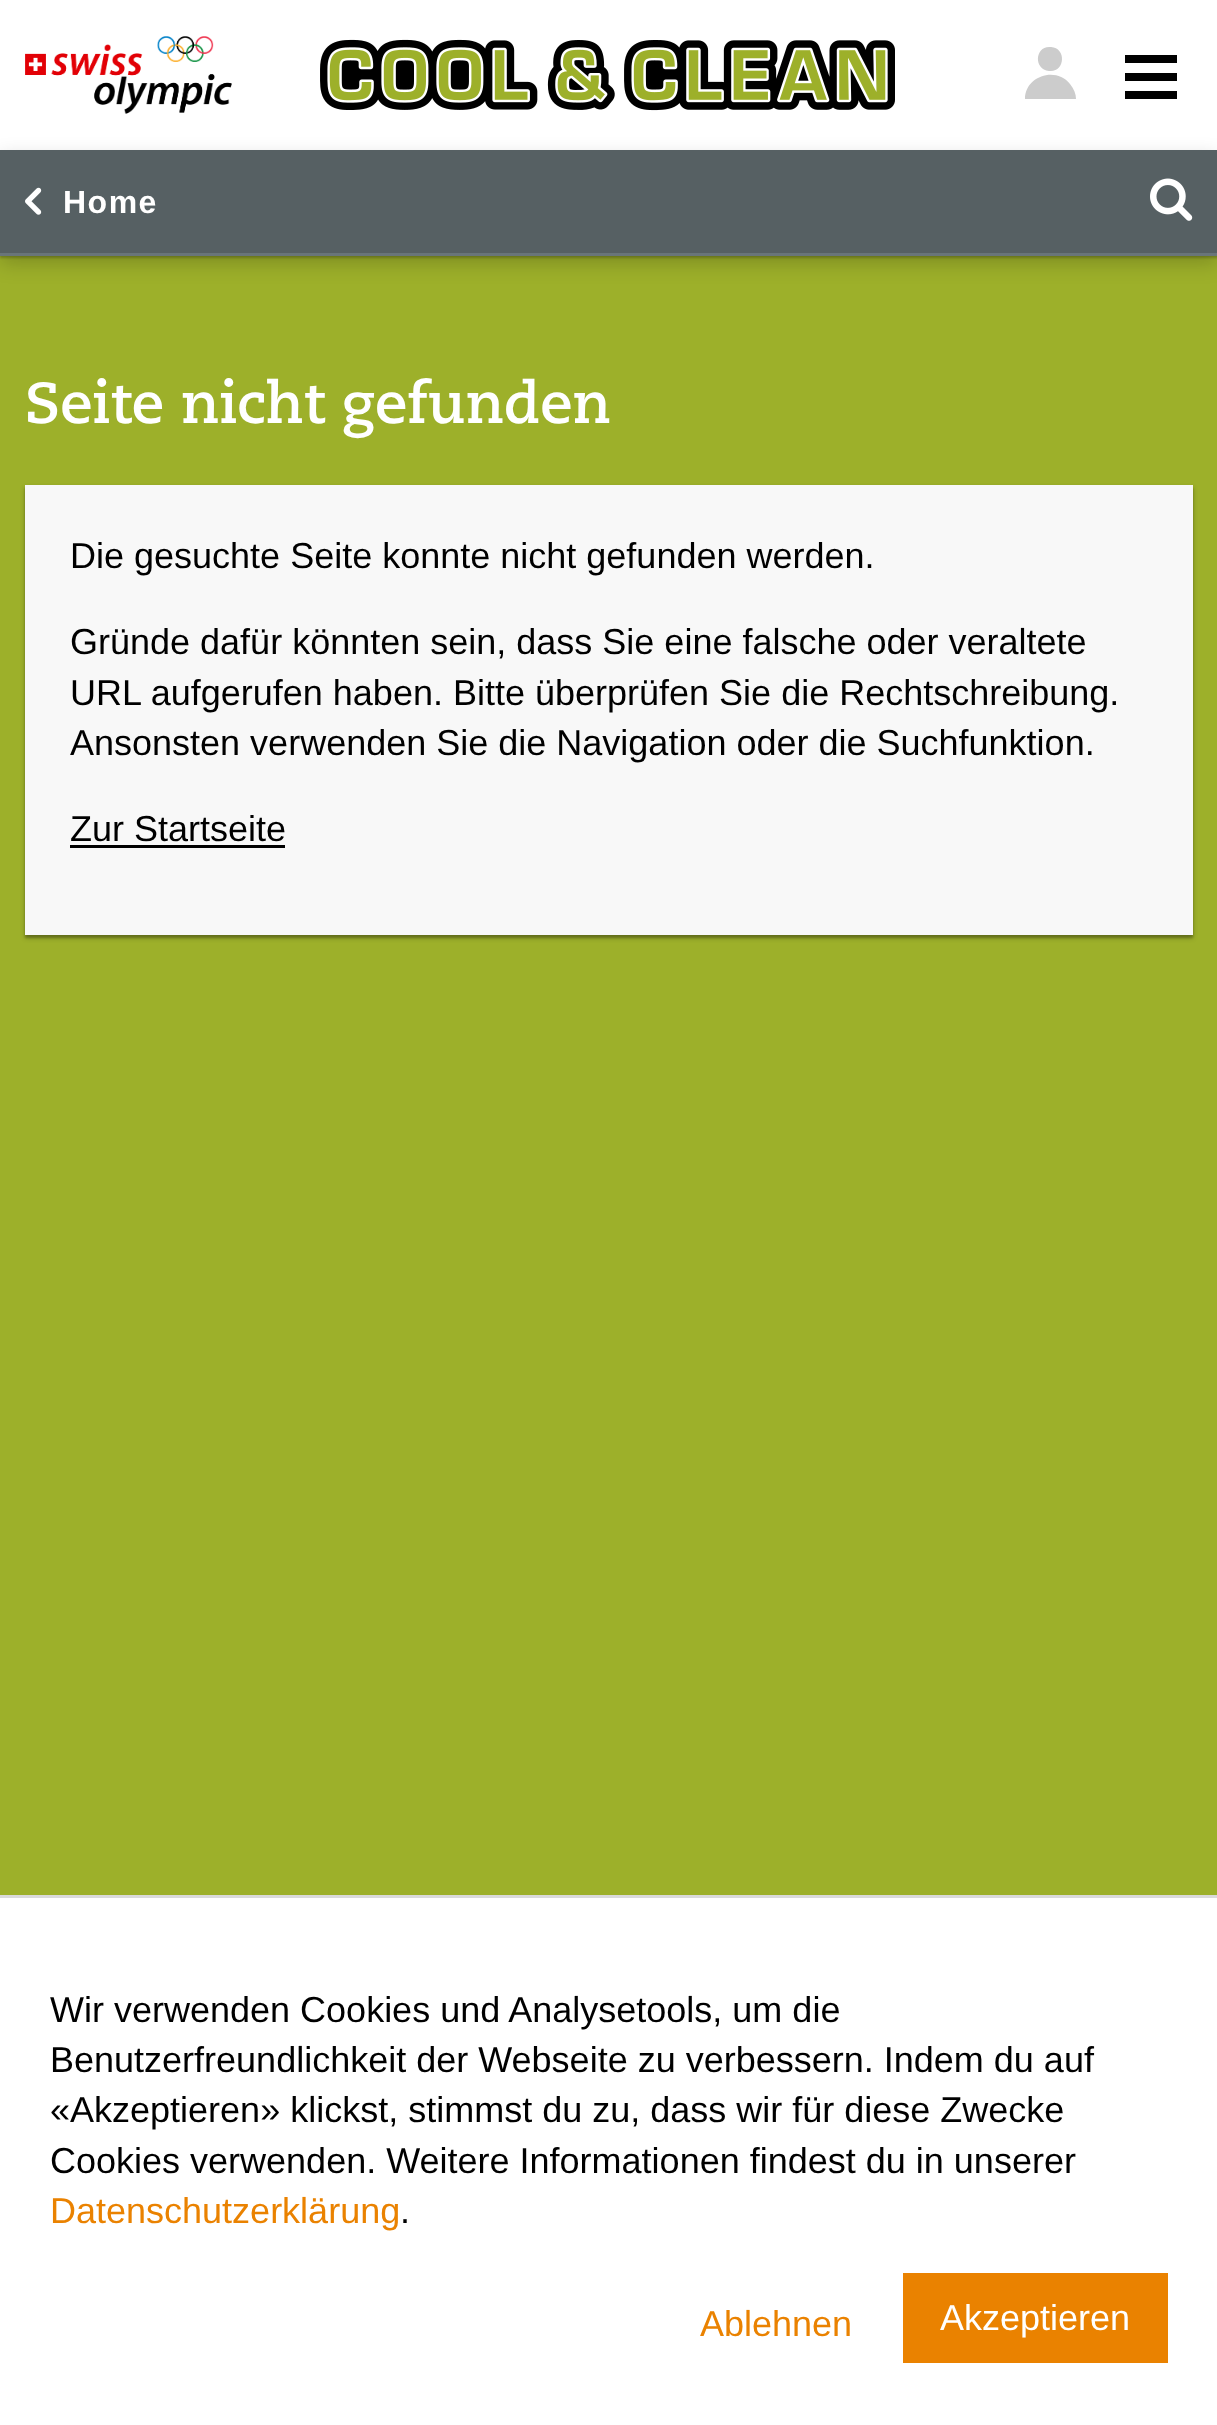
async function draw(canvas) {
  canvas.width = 1217
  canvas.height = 2425
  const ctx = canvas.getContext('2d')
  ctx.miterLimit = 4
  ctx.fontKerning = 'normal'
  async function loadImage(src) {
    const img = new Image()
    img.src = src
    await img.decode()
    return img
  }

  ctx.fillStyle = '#9db02a'
  ctx.fillRect(0, 0, 1217, 2425)
  ctx.fillStyle = '#fff'
  ctx.fillRect(0, 0, 1217, 150)
  ctx.drawImage(await loadImage('image0.png'), 25, 36, 207, 78)
  ctx.drawImage(await loadImage('image1.png'), 320, 39, 575, 72)
  ctx.fillStyle = '#ccc'
  ctx.beginPath()
  ctx.moveTo(1025, 99)
  ctx.bezierCurveTo(1025, 76, 1056, 66, 1070, 84)
  ctx.bezierCurveTo(1074, 89, 1076, 94, 1076, 99)
  ctx.closePath()
  ctx.moveTo(1049, 71)
  ctx.bezierCurveTo(1033, 69, 1035, 45, 1051, 47)
  ctx.bezierCurveTo(1067, 48, 1065, 73, 1049, 71)
  ctx.closePath()
  ctx.fill()
  ctx.fillStyle = '#000'
  ctx.beginPath()
  ctx.moveTo(1125, 63)
  ctx.lineTo(1125, 55)
  ctx.lineTo(1177, 55)
  ctx.lineTo(1177, 63)
  ctx.closePath()
  ctx.moveTo(1125, 81)
  ctx.lineTo(1125, 73)
  ctx.lineTo(1177, 73)
  ctx.lineTo(1177, 81)
  ctx.closePath()
  ctx.moveTo(1125, 99)
  ctx.lineTo(1125, 91)
  ctx.lineTo(1177, 91)
  ctx.lineTo(1177, 99)
  ctx.closePath()
  ctx.fill()
  ctx.fillStyle = '#00000033'
  ctx.filter = 'blur(10px)'
  ctx.beginPath()
  ctx.rect(0, 158, 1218, 105)
  ctx.fill()
  ctx.filter = 'none'
  ctx.filter = 'blur(1px)'
  ctx.beginPath()
  ctx.rect(0, 153, 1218, 105)
  ctx.fill()
  ctx.filter = 'none'
  ctx.fillStyle = '#566063'
  ctx.fillRect(0, 150, 1217, 103)
  ctx.fillStyle = '#697579'
  ctx.fillRect(0, 253, 1217, 3)
  ctx.drawImage(await loadImage('image2.png'), 25, 187, 17, 28)
  ctx.letterSpacing = '1.5px'
  ctx.font = 'bold 32px Liberation Sans'
  ctx.fillStyle = '#fff'
  ctx.fillText('Home', 63, 213)
  ctx.drawImage(await loadImage('image3.png'), 1150, 178, 43, 43)
  ctx.letterSpacing = '0px'
  ctx.font = 'bold 57.6px "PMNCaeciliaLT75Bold"'
  ctx.fillText('Seite nicht gefunden', 25, 423)
  ctx.fillStyle = '#0000003d'
  ctx.filter = 'blur(2.5px)'
  ctx.beginPath()
  ctx.rect(25, 488, 1168, 450)
  ctx.fill()
  ctx.filter = 'none'
  ctx.fillStyle = '#00000033'
  ctx.filter = 'blur(1px)'
  ctx.beginPath()
  ctx.rect(25, 488, 1168, 450)
  ctx.fill()
  ctx.filter = 'none'
  ctx.fillStyle = '#f8f8f8'
  ctx.fillRect(25, 485, 1168, 450)
  ctx.font = '36px Liberation Sans'
  ctx.fillStyle = '#000'
  ctx.fillText('Die gesuchte Seite konnte nicht gefunden werden.', 70, 568)
  ctx.fillText('Gründe dafür könnten sein, dass Sie eine falsche oder veraltete', 70, 654)
  ctx.fillText('URL aufgerufen haben. Bitte überprüfen Sie die Rechtschreibung.', 70, 705)
  ctx.fillText('Ansonsten verwenden Sie die Navigation oder die Suchfunktion.', 70, 755)
  ctx.fillText('Zur Startseite', 70, 841)
  ctx.fillRect(70, 845, 215, 3)
  ctx.fillStyle = '#fff'
  ctx.fillRect(0, 1898, 1217, 527)
  ctx.fillStyle = '#dadada'
  ctx.fillRect(0, 1895, 1217, 3)
  ctx.fillStyle = '#000'
  ctx.fillText('Wir verwenden Cookies und Analysetools, um die', 50, 2022)
  ctx.fillText('Benutzerfreundlichkeit der Webseite zu verbessern. Indem du auf', 50, 2072)
  ctx.fillText('«Akzeptieren» klickst, stimmst du zu, dass wir für diese Zwecke', 50, 2122)
  ctx.fillText('Cookies verwenden. Weitere Informationen findest du in unserer', 50, 2173)
  ctx.fillStyle = '#ea8200'
  ctx.fillText('Datenschutzerklärung', 50, 2223)
  ctx.fillStyle = '#000'
  ctx.fillText('.', 400, 2223)
  ctx.fillStyle = '#ea8200'
  ctx.fillText('Ablehnen', 700, 2336)
  ctx.fillRect(903, 2273, 265, 90)
  ctx.fillStyle = '#fff'
  ctx.fillText('Akzeptieren', 940, 2330)
}

draw(document.querySelector('canvas'))
